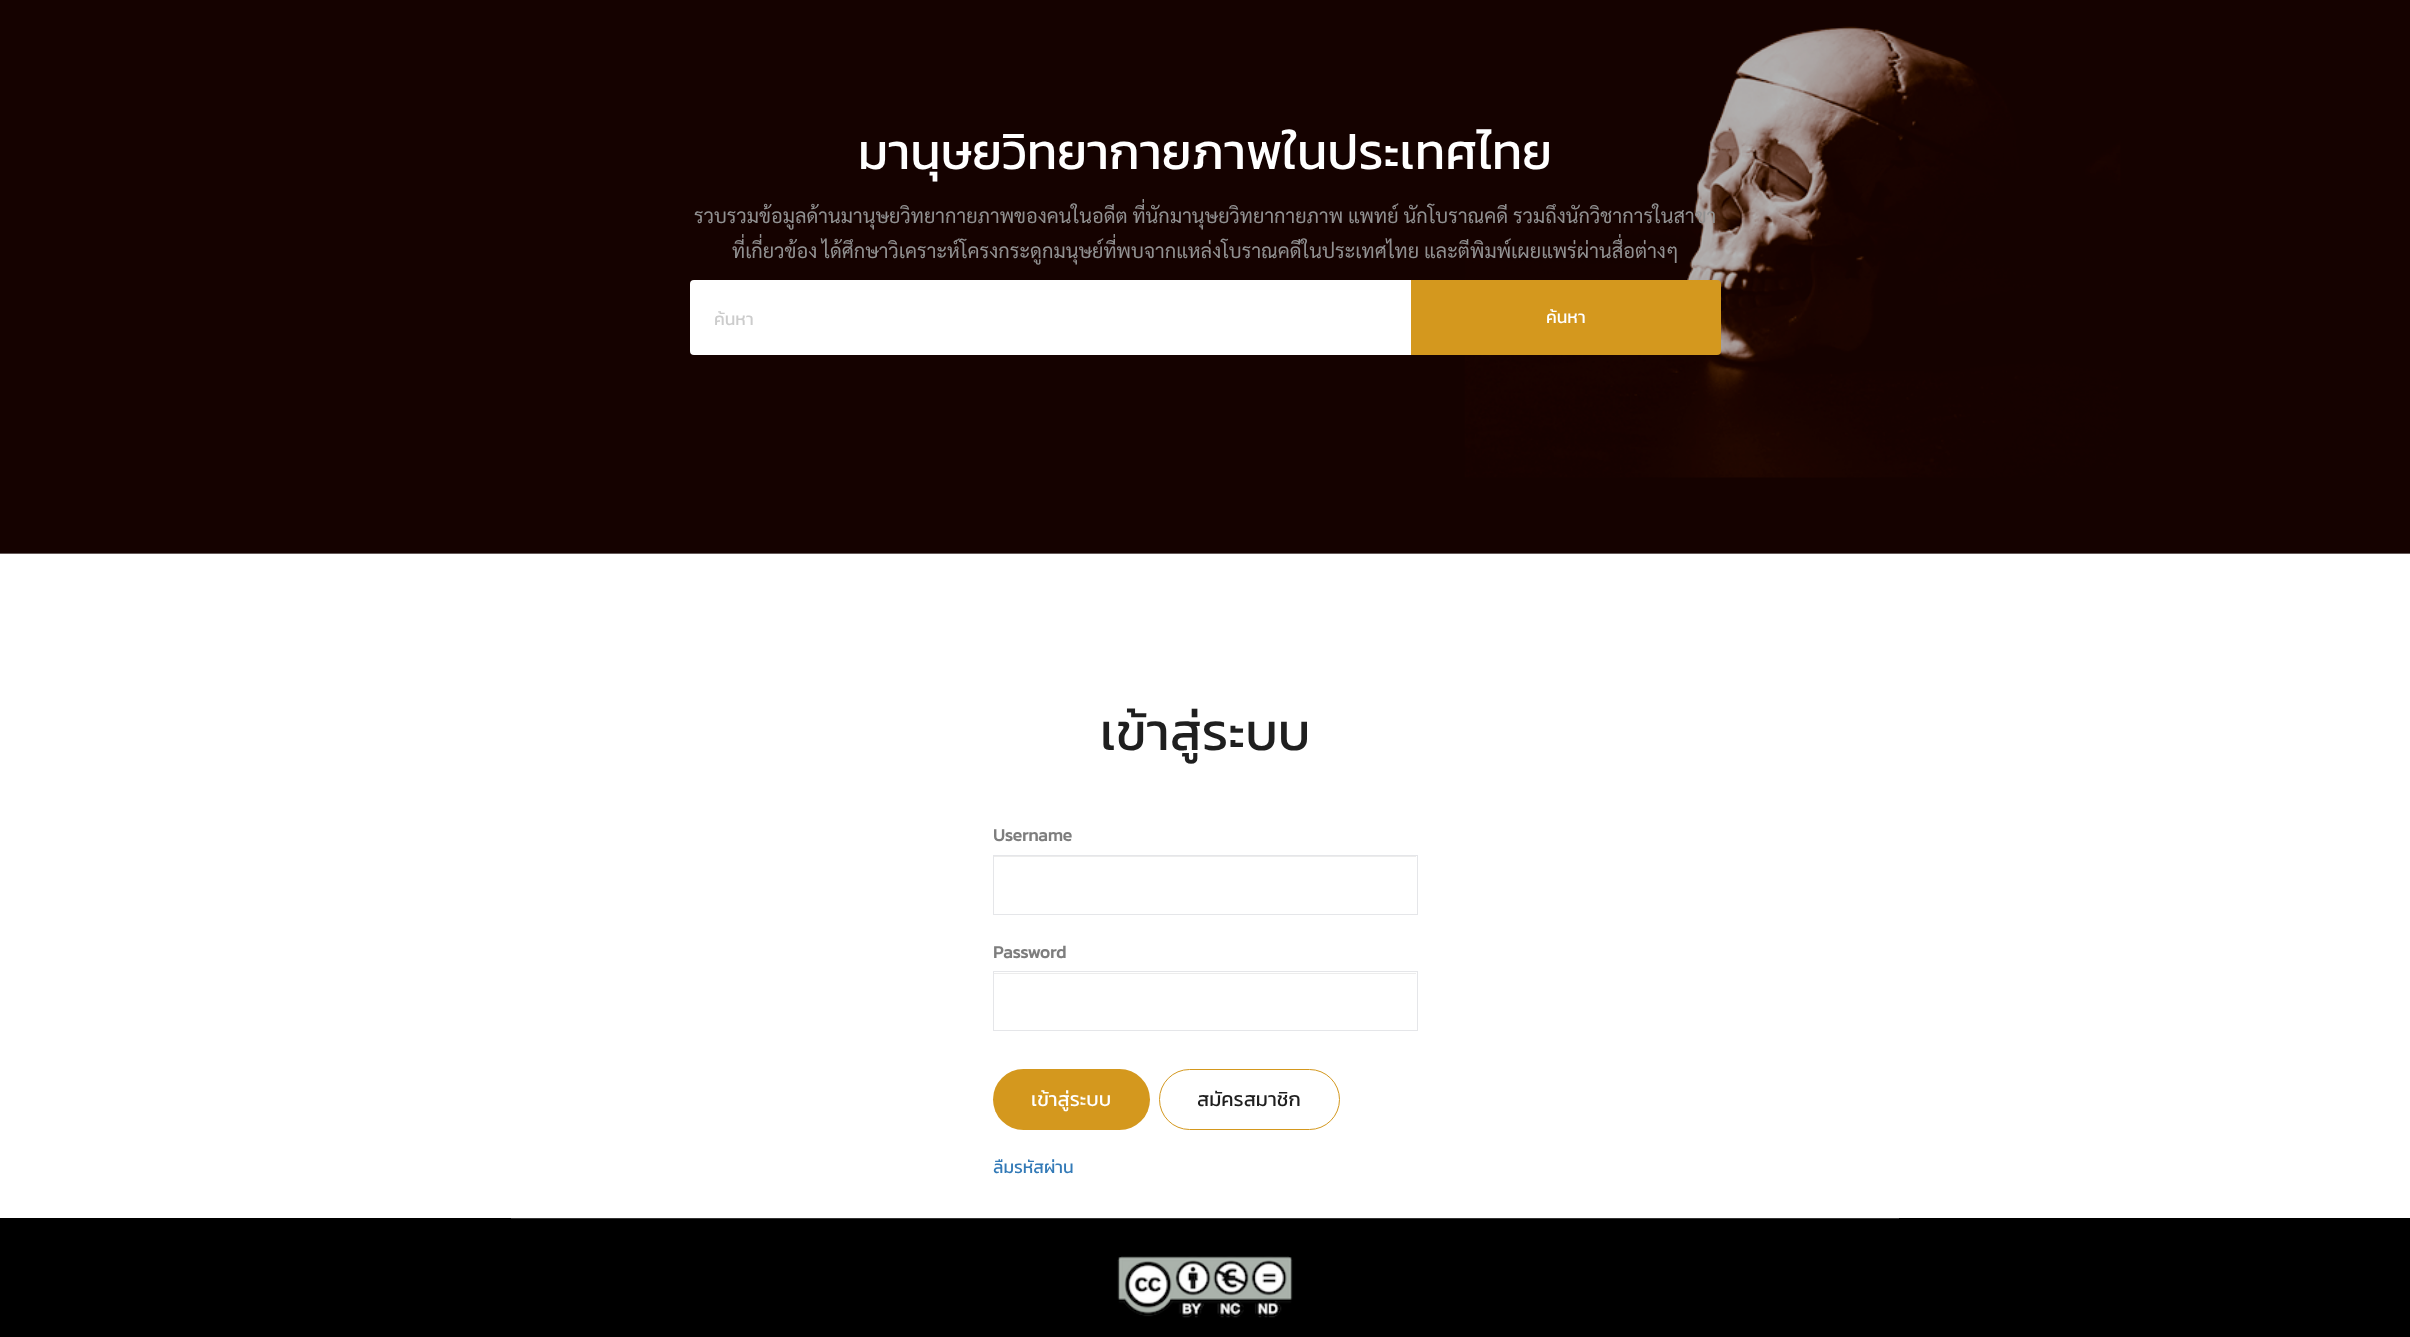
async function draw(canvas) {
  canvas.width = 2410
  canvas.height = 1337
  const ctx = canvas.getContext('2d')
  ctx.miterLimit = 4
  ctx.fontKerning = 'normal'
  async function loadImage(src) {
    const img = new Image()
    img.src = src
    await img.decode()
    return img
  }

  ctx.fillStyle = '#fff'
  ctx.fillRect(0, 0, 2410, 1337)
  ctx.fillStyle = '#b3b3b3'
  ctx.fillRect(0, 553, 2410, 1)
  ctx.drawImage(await loadImage('image0.png'), 0, 0, 2410, 554)
  ctx.font = '50px Kanit'
  ctx.fillStyle = '#fff'
  ctx.fillText('มานุษยวิทยากายภาพในประเทศไทย', 858, 169)
  ctx.font = '20px Sarabun'
  ctx.fillStyle = '#919191'
  ctx.fillText('รวบรวมข้อมูลด้านมานุษยวิทยากายภาพของคนในอดีต ที่นักมานุษยวิทยากายภาพ แพทย์ นักโบราณคดี รวมถึงนักวิชาการในสาขา', 694, 223)
  ctx.fillText('ที่เกี่ยวข้อง ได้ศึกษาวิเคราะห์โครงกระดูกมนุษย์ที่พบจากแหล่งโบราณคดีในประเทศไทย และตีพิมพ์เผยแพร่ผ่านสื่อต่างๆ', 732, 258)
  ctx.fillStyle = '#fff'
  ctx.beginPath()
  ctx.roundRect(690, 280, 721, 75, [4, 0, 0, 4])
  ctx.fill()
  ctx.save()
  ctx.beginPath()
  ctx.rect(715, 306, 671, 27)
  ctx.clip()
  ctx.font = '17.5px Kanit'
  ctx.fillStyle = '#ccc'
  ctx.fillText('ค้นหา', 714, 325)
  ctx.restore()
  ctx.fillStyle = '#d4981e'
  ctx.beginPath()
  ctx.roundRect(1411, 280, 310, 75, [0, 4, 4, 0])
  ctx.fill()
  ctx.font = '17.5px Kanit'
  ctx.fillStyle = '#fff'
  ctx.fillText('ค้นหา', 1546, 323)
  ctx.font = '52.5px Kanit'
  ctx.fillStyle = '#1f1f1f'
  ctx.fillText('เข้าสู่ระบบ', 1100, 750)
  ctx.font = 'bold 17.5px Kanit'
  ctx.fillStyle = '#7e7e7e'
  ctx.fillText('Username', 993, 841)
  ctx.fillStyle = '#ececec'
  ctx.fillRect(994, 856, 422, 1)
  ctx.strokeStyle = '#e5e6e9'
  ctx.strokeRect(993.5, 855.5, 424, 59)
  ctx.fillStyle = '#7e7e7e'
  ctx.fillText('Password', 993, 958)
  ctx.fillStyle = '#ececec'
  ctx.fillRect(994, 973, 422, 1)
  ctx.strokeRect(993.5, 971.5, 424, 59)
  ctx.fillStyle = '#d4981e'
  ctx.beginPath()
  ctx.roundRect(993, 1069, 157, 61, 30.5)
  ctx.fill()
  ctx.font = '20px Kanit'
  ctx.fillStyle = '#fff'
  ctx.fillText('เข้าสู่ระบบ', 1031, 1106)
  ctx.beginPath()
  ctx.roundRect(1159.5, 1069.5, 180, 60, 30)
  ctx.strokeStyle = '#d4981e'
  ctx.stroke()
  ctx.fillStyle = '#1f1f1f'
  ctx.fillText('สมัครสมาชิก', 1197, 1106)
  ctx.font = '17.5px Kanit'
  ctx.fillStyle = '#337ab7'
  ctx.fillText('ลืมรหัสผ่าน', 993, 1173)
  ctx.fillStyle = '#000'
  ctx.fillRect(0, 1218, 2410, 119)
  ctx.fillStyle = '#333'
  ctx.fillRect(511, 1218, 1388, 1)
  ctx.drawImage(await loadImage('image1.png'), 1117, 1256, 176, 62)
}

draw(document.querySelector('canvas'))
